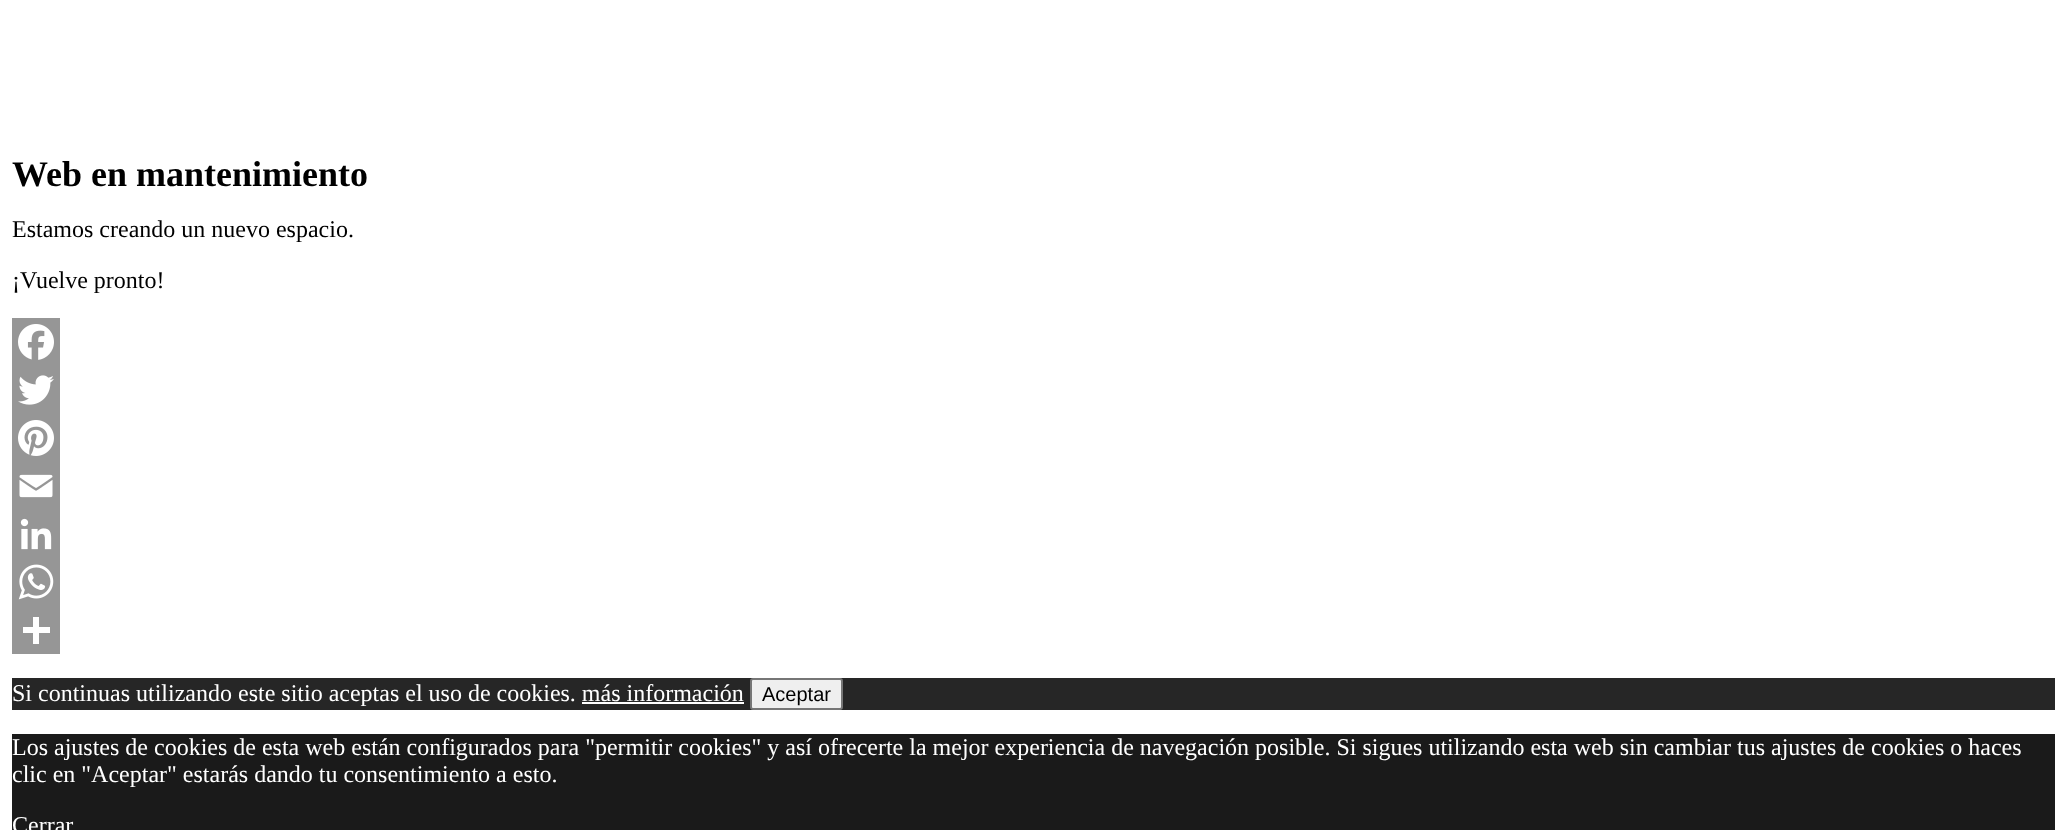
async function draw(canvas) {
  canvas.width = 2066
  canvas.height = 830
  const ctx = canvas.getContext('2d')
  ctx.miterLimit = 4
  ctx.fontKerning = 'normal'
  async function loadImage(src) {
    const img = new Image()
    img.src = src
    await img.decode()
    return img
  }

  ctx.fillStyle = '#fff'
  ctx.fillRect(0, 0, 2066, 830)
  ctx.font = 'bold 36px Liberation Serif'
  ctx.fillStyle = '#000'
  ctx.fillText('Web en mantenimiento', 12, 186)
  ctx.font = '24px Liberation Serif'
  ctx.fillText('Estamos creando un nuevo espacio.', 12, 237)
  ctx.fillText('¡Vuelve pronto!', 12, 288)
  ctx.fillStyle = '#969696'
  ctx.fillRect(12, 318, 48, 336)
  ctx.drawImage(await loadImage('image0.png'), 18, 324, 36, 36)
  ctx.drawImage(await loadImage('image1.png'), 18, 375, 36, 30)
  ctx.drawImage(await loadImage('image2.png'), 18, 420, 36, 36)
  ctx.drawImage(await loadImage('image3.png'), 19, 474, 34, 24)
  ctx.drawImage(await loadImage('image4.png'), 20, 518, 32, 32)
  ctx.drawImage(await loadImage('image5.png'), 18, 564, 36, 36)
  ctx.fillStyle = '#fff'
  ctx.fillRect(33, 617, 6, 27)
  ctx.fillRect(23, 627, 27, 6)
  ctx.fillStyle = '#262626'
  ctx.fillRect(12, 678, 2043, 32)
  ctx.fillStyle = '#fff'
  ctx.fillText('Si continuas utilizando este sitio aceptas el uso de cookies. más información', 12, 701)
  ctx.fillStyle = '#efefef'
  ctx.beginPath()
  ctx.roundRect(751, 679, 91, 30, 2)
  ctx.fill()
  ctx.strokeStyle = '#767676'
  ctx.lineWidth = 2
  ctx.stroke()
  ctx.font = '20px Liberation Sans'
  ctx.fillStyle = '#000'
  ctx.fillText('Aceptar', 762, 701)
  ctx.fillStyle = '#fff'
  ctx.fillRect(582, 702, 162, 2)
  ctx.fillStyle = '#1a1a1a'
  ctx.fillRect(12, 734, 2043, 96)
  ctx.font = '24px Liberation Serif'
  ctx.fillStyle = '#fff'
  ctx.fillText('Los ajustes de cookies de esta web están configurados para "permitir cookies" y así ofrecerte la mejor experiencia de navegación posible. Si sigues utilizando esta web sin cambiar tus ajustes de cookies o haces', 12, 755)
  ctx.fillText('clic en "Aceptar" estarás dando tu consentimiento a esto.', 12, 782)
  ctx.fillText('Cerrar', 12, 833)
}

draw(document.querySelector('canvas'))
